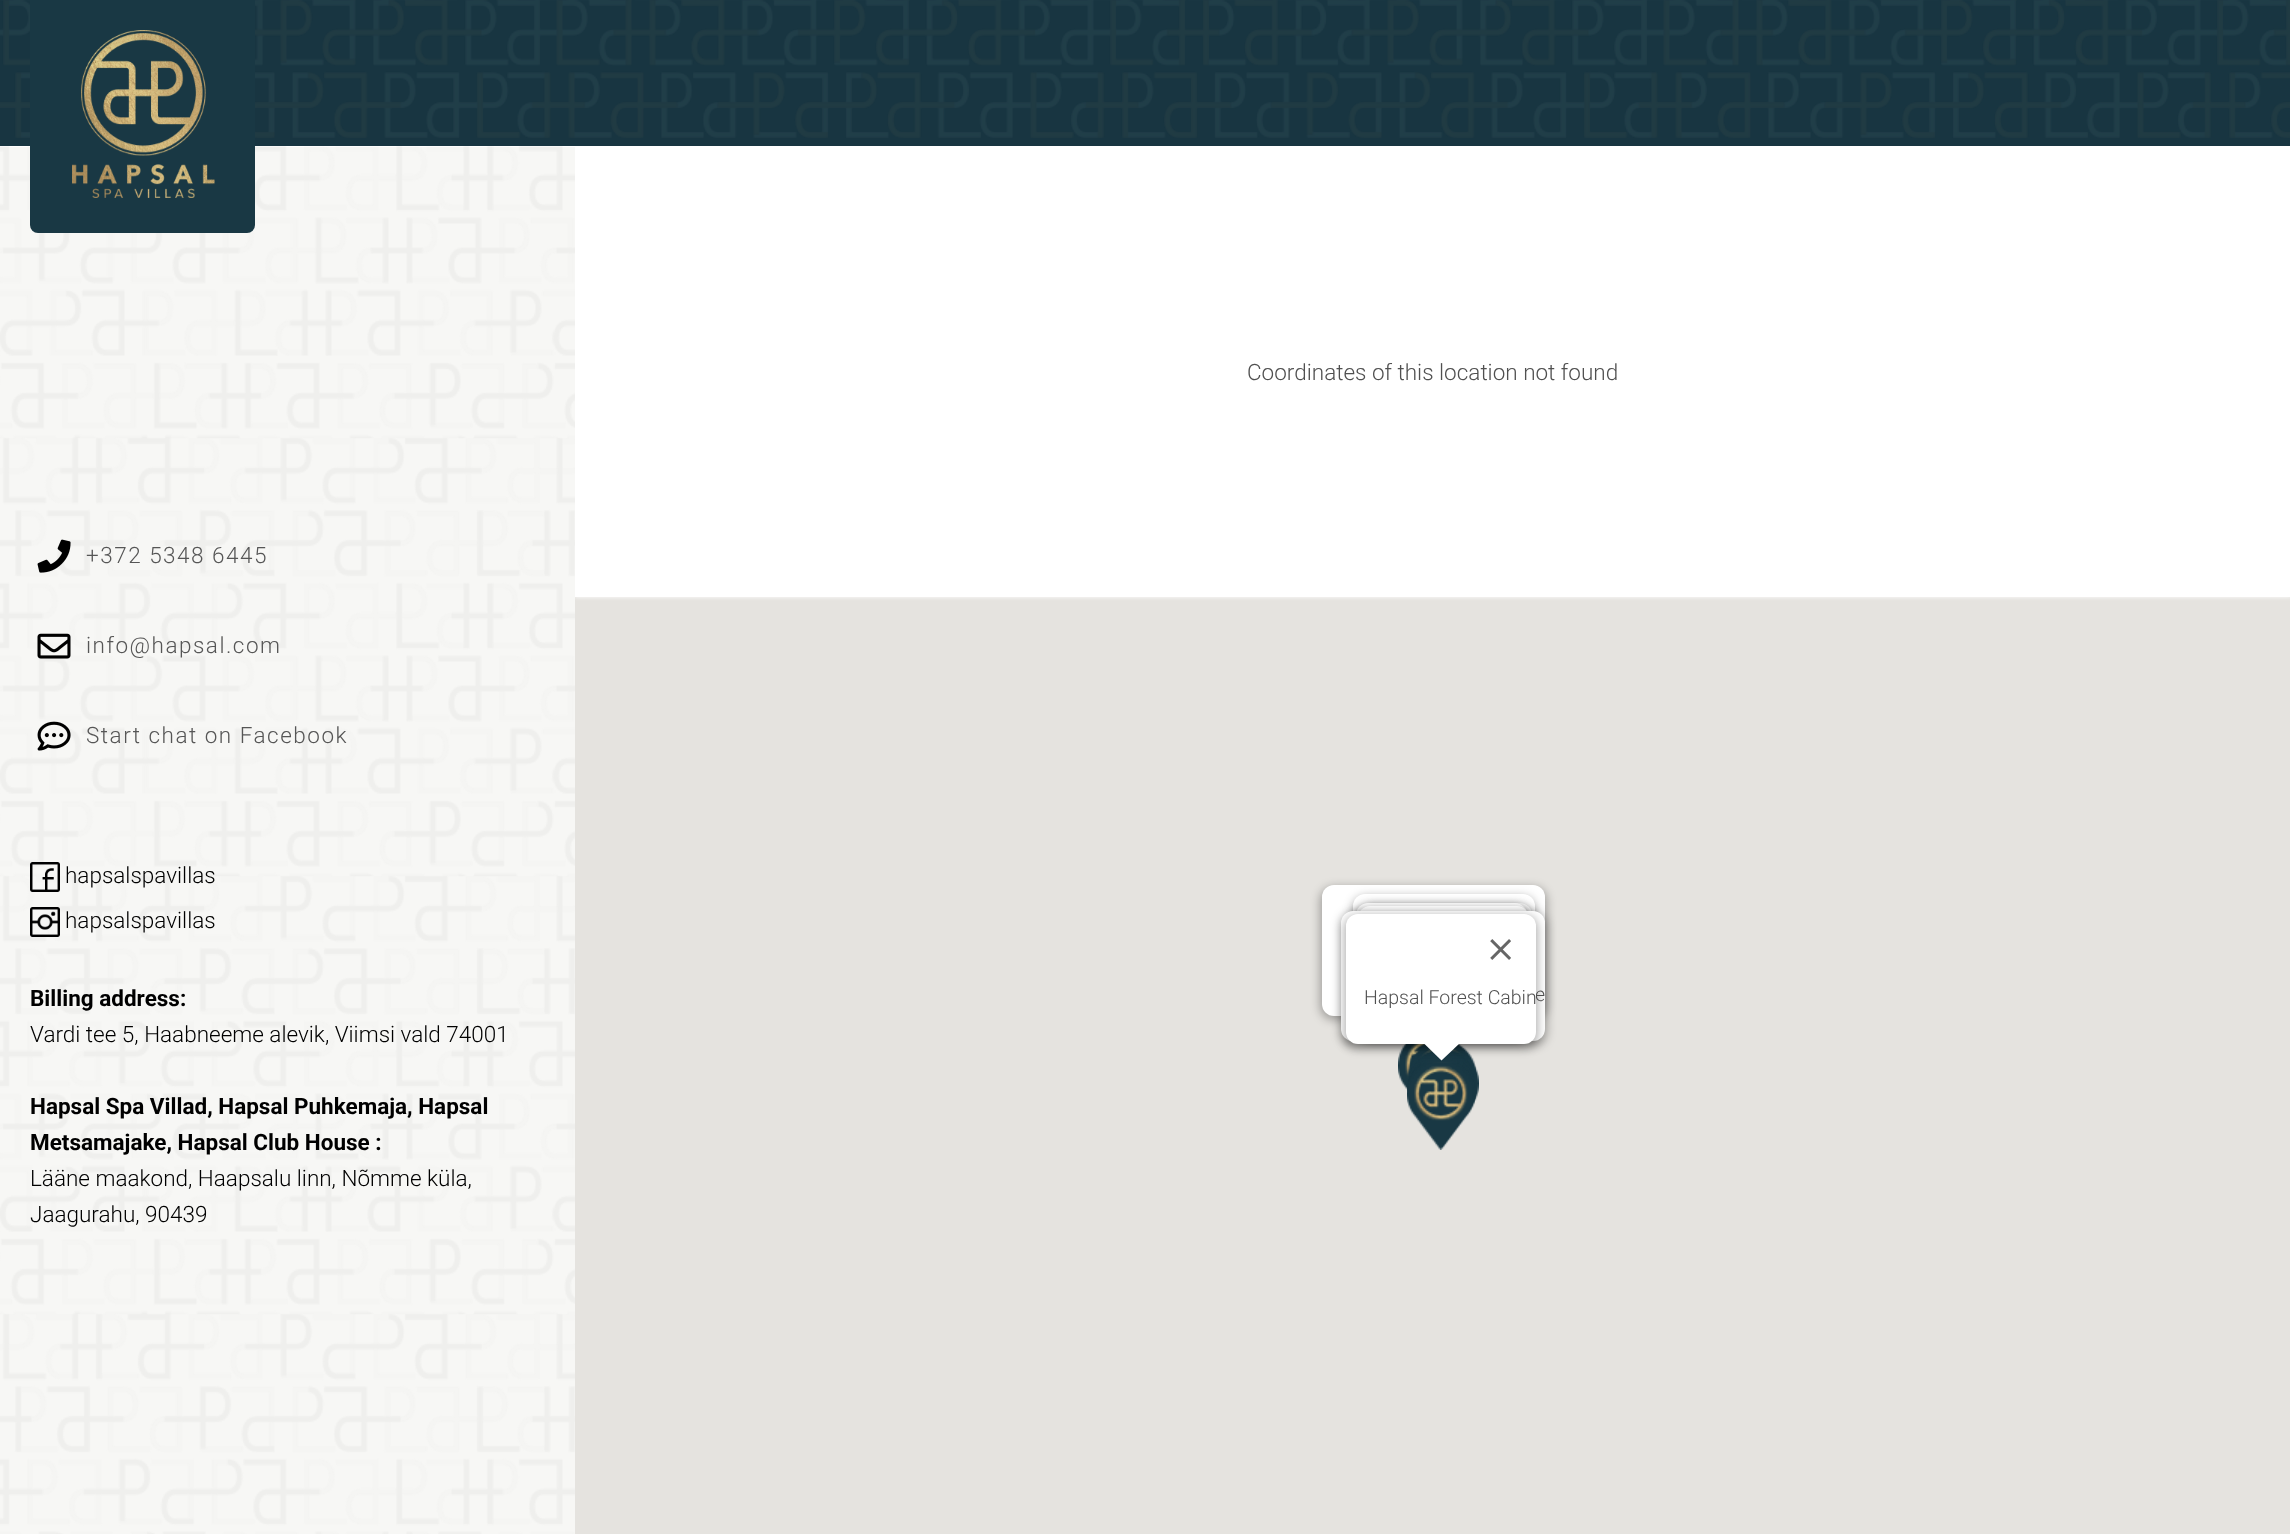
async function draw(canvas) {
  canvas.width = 2290
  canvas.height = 1534
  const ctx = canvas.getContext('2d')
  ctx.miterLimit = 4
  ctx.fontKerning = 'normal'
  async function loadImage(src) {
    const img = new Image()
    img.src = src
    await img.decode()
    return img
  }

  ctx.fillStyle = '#fff'
  ctx.fillRect(0, 0, 2290, 1534)
  ctx.fillStyle = '#183541'
  ctx.fillRect(0, 0, 2290, 146)
  ctx.drawImage(await loadImage('image1.png'), 0, 0, 2290, 138)
  ctx.fillStyle = '#f7f7f5'
  ctx.fillRect(0, 147, 575, 1387)
  ctx.drawImage(await loadImage('image2.png'), 0, 146, 575, 1388)
  ctx.fillStyle = '#193844'
  ctx.beginPath()
  ctx.roundRect(30, 0, 225, 233, [0, 0, 8, 8])
  ctx.fill()
  ctx.drawImage(await loadImage('image0.png'), 72, 30, 143, 168)
  ctx.drawImage(await loadImage('image3.png'), 37, 539, 34, 34)
  ctx.letterSpacing = '1.5px'
  ctx.font = '300 22.5px Roboto'
  ctx.fillStyle = '#565656'
  ctx.fillText('+372 5348 6445', 86, 563)
  ctx.drawImage(await loadImage('image4.png'), 37, 633, 34, 26)
  ctx.fillText('info@hapsal.com', 86, 653)
  ctx.drawImage(await loadImage('image5.png'), 37, 721, 34, 30)
  ctx.fillText('Start chat on Facebook', 86, 743)
  ctx.drawImage(await loadImage('image6.png'), 30, 862, 30, 30)
  ctx.letterSpacing = '0px'
  ctx.fillStyle = '#000'
  ctx.fillText('hapsalspavillas', 65, 883)
  ctx.drawImage(await loadImage('image7.png'), 30, 907, 30, 30)
  ctx.fillText('hapsalspavillas', 65, 928)
  ctx.font = 'bold 22.5px Roboto'
  ctx.fillText('Billing address:', 30, 1006)
  ctx.font = '300 22.5px Roboto'
  ctx.fillText('Vardi tee 5, Haabneeme alevik, Viimsi vald 74001', 30, 1042)
  ctx.font = 'bold 22.5px Roboto'
  ctx.fillText('Hapsal Spa Villad, Hapsal Puhkemaja, Hapsal', 30, 1114)
  ctx.fillText('Metsamajake, Hapsal Club House :', 30, 1150)
  ctx.font = '300 22.5px Roboto'
  ctx.fillText('Lääne maakond, Haapsalu linn, Nõmme küla,', 30, 1186)
  ctx.fillText('Jaagurahu, 90439', 30, 1222)
  ctx.fillStyle = '#e5e3df'
  ctx.fillRect(575, 597, 1715, 937)
  ctx.save()
  ctx.beginPath()
  ctx.rect(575, 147, 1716, 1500)
  ctx.clip()
  ctx.fillStyle = '#fff'
  ctx.filter = 'blur(2px)'
  ctx.beginPath()
  ctx.rect(575, 147, 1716, 450)
  ctx.fill()
  ctx.filter = 'none'
  ctx.restore()
  ctx.fillStyle = '#505050'
  ctx.fillText('Coordinates of this location not found', 1247, 380)
  ctx.fillStyle = '#0000004d'
  ctx.filter = 'blur(5px)'
  ctx.beginPath()
  ctx.roundRect(1320, 887, 227, 133, 14)
  ctx.fill()
  ctx.filter = 'none'
  ctx.fillStyle = '#fff'
  ctx.beginPath()
  ctx.roundRect(1322, 885, 223, 131, 12)
  ctx.fill()
  ctx.drawImage(await loadImage('image9.png'), 1398, 1044, 65, 49)
  ctx.drawImage(await loadImage('image10.png'), 1408, 1044, 68, 41)
  ctx.fillStyle = '#0000004d'
  ctx.filter = 'blur(5px)'
  ctx.beginPath()
  ctx.roundRect(1352, 896, 184, 133, 14)
  ctx.fill()
  ctx.filter = 'none'
  ctx.fillStyle = '#fff'
  ctx.beginPath()
  ctx.roundRect(1353, 894, 182, 131, 12)
  ctx.fill()
  ctx.drawImage(await loadImage('image11.png'), 1417, 1049, 62, 90)
  ctx.drawImage(await loadImage('image12.png'), 1407, 1050, 65, 48)
  ctx.fillStyle = '#0000004d'
  ctx.filter = 'blur(5px)'
  ctx.beginPath()
  ctx.roundRect(1359, 905, 174, 133, 14)
  ctx.fill()
  ctx.filter = 'none'
  ctx.fillStyle = '#fff'
  ctx.beginPath()
  ctx.roundRect(1361, 903, 171, 131, 12)
  ctx.fill()
  ctx.fillStyle = '#0000004d'
  ctx.filter = 'blur(5px)'
  ctx.beginPath()
  ctx.roundRect(1355, 905, 174, 133, 14)
  ctx.fill()
  ctx.filter = 'none'
  ctx.fillStyle = '#fff'
  ctx.beginPath()
  ctx.roundRect(1356, 903, 171, 131, 12)
  ctx.fill()
  ctx.drawImage(await loadImage('image13.png'), 1408, 1055, 67, 78)
  ctx.fillStyle = '#0000004d'
  ctx.filter = 'blur(5px)'
  ctx.beginPath()
  ctx.roundRect(1356, 908, 174, 133, 14)
  ctx.fill()
  ctx.filter = 'none'
  ctx.fillStyle = '#fff'
  ctx.beginPath()
  ctx.roundRect(1358, 906, 171, 131, 12)
  ctx.fill()
  ctx.drawImage(await loadImage('image14.png'), 1408, 1058, 68, 89)
  ctx.fillStyle = '#0000004d'
  ctx.filter = 'blur(5px)'
  ctx.beginPath()
  ctx.roundRect(1340, 912, 207, 134, 14)
  ctx.fill()
  ctx.filter = 'none'
  ctx.fillStyle = '#fff'
  ctx.beginPath()
  ctx.roundRect(1341, 911, 204, 130, 12)
  ctx.fill()
  ctx.drawImage(await loadImage('image15.png'), 1407, 1063, 68, 87)
  ctx.fillStyle = '#0000004d'
  ctx.filter = 'blur(5px)'
  ctx.beginPath()
  ctx.roundRect(1344, 915, 194, 134, 14)
  ctx.fill()
  ctx.filter = 'none'
  ctx.font = '300 19.5px Roboto'
  ctx.fillStyle = '#505050'
  ctx.fillText('e', 1535, 1001)
  ctx.fillStyle = '#fff'
  ctx.beginPath()
  ctx.roundRect(1346, 914, 190, 130, 12)
  ctx.fill()
  ctx.drawImage(await loadImage('image8.png'), 1490, 939, 21, 21)
  ctx.fillStyle = '#505050'
  ctx.fillText('Hapsal Forest Cabin', 1364, 1004)
  ctx.fillStyle = '#fff'
  ctx.beginPath()
  ctx.moveTo(1424, 1043)
  ctx.lineTo(1424, 1043.5)
  ctx.lineTo(1441.5, 1060.5)
  ctx.lineTo(1460, 1043)
  ctx.closePath()
  ctx.fill()
}

draw(document.querySelector('canvas'))
